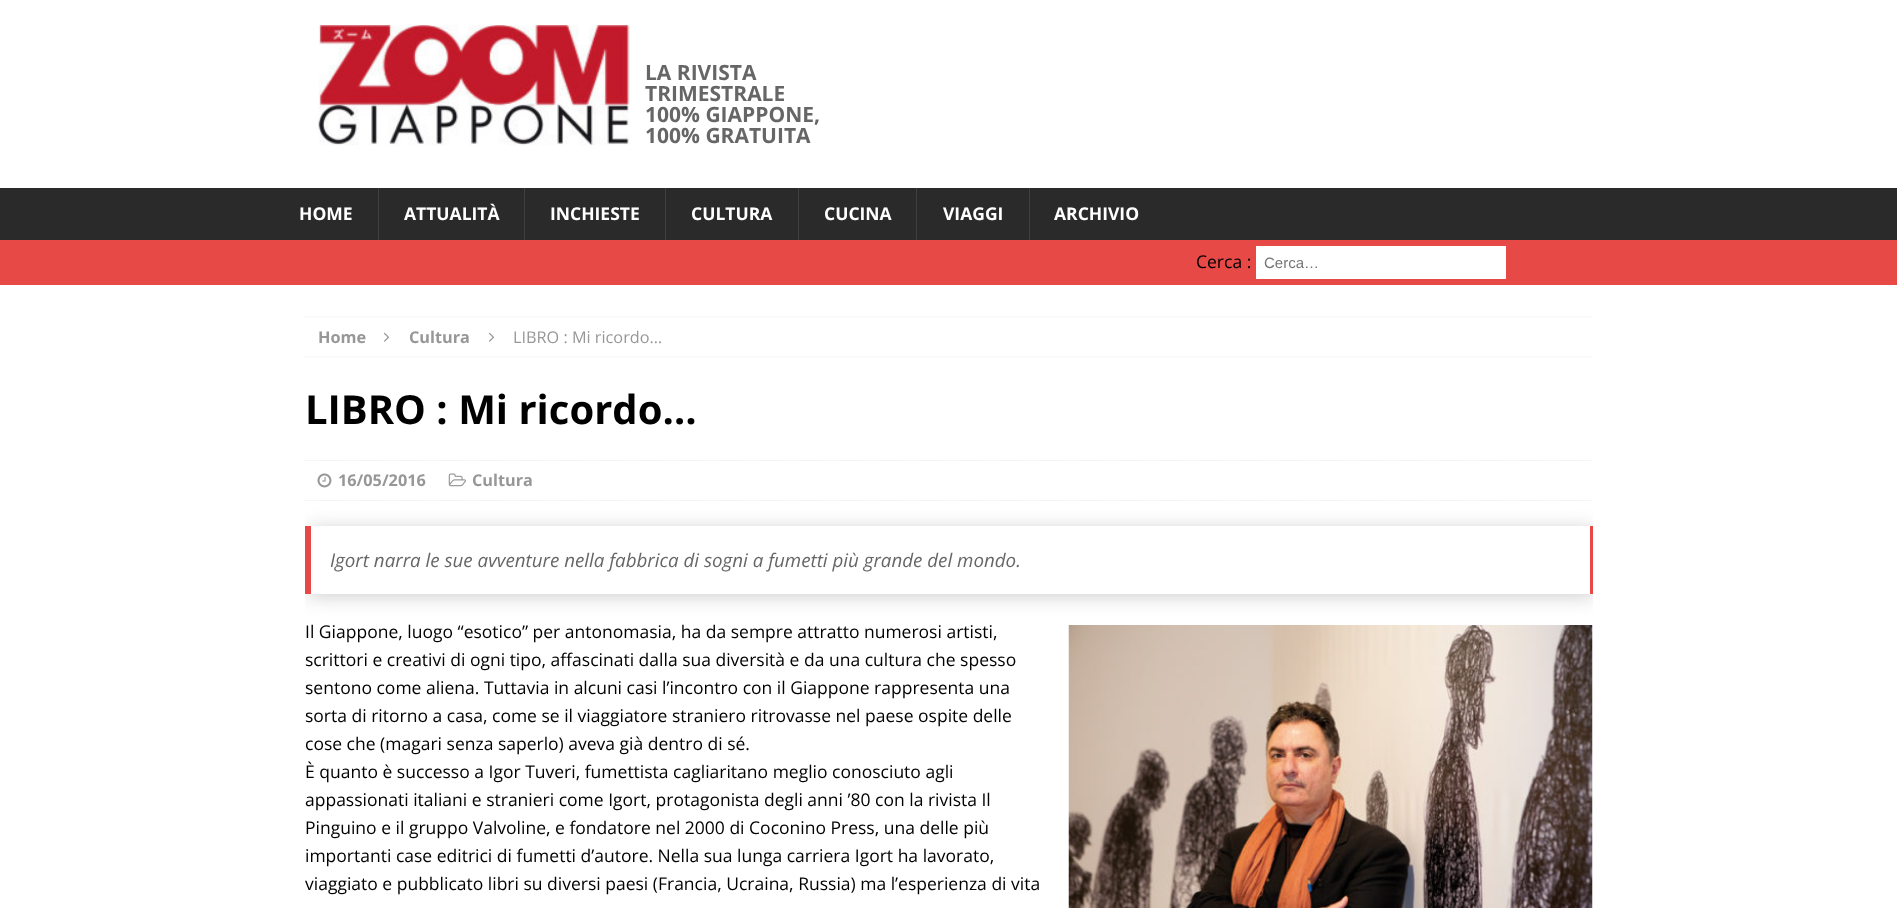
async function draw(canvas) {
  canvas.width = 1897
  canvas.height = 908
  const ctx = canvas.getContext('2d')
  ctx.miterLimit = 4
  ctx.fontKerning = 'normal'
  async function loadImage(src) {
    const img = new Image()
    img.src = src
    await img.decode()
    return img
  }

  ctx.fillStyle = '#fff'
  ctx.fillRect(0, 0, 1897, 908)
  ctx.drawImage(await loadImage('image0.png'), 318, 25, 312, 121)
  ctx.font = 'bold 21px Open Sans'
  ctx.fillStyle = '#666'
  ctx.fillText('LA RIVISTA', 645, 80)
  ctx.fillText('TRIMESTRALE', 645, 101)
  ctx.fillText('100% GIAPPONE,', 645, 122)
  ctx.fillText('100% GRATUITA', 645, 143)
  ctx.fillStyle = '#2a2a2a'
  ctx.fillRect(0, 188, 1897, 52)
  ctx.font = 'bold 17.5px Open Sans'
  ctx.fillStyle = '#fff'
  ctx.fillText('HOME', 299, 220)
  ctx.fillStyle = '#3f3f3f'
  ctx.fillRect(378, 188, 1, 52)
  ctx.fillStyle = '#fff'
  ctx.fillText('ATTUALITÀ', 404, 220)
  ctx.fillStyle = '#3f3f3f'
  ctx.fillRect(524, 188, 1, 52)
  ctx.fillStyle = '#fff'
  ctx.fillText('INCHIESTE', 550, 220)
  ctx.fillStyle = '#3f3f3f'
  ctx.fillRect(665, 188, 1, 52)
  ctx.fillStyle = '#fff'
  ctx.fillText('CULTURA', 691, 220)
  ctx.fillStyle = '#3f3f3f'
  ctx.fillRect(798, 188, 1, 52)
  ctx.fillStyle = '#fff'
  ctx.fillText('CUCINA', 824, 220)
  ctx.fillStyle = '#3f3f3f'
  ctx.fillRect(916, 188, 1, 52)
  ctx.fillStyle = '#fff'
  ctx.fillText('VIAGGI', 943, 220)
  ctx.fillStyle = '#3f3f3f'
  ctx.fillRect(1029, 188, 1, 52)
  ctx.fillStyle = '#fff'
  ctx.fillText('ARCHIVIO', 1054, 220)
  ctx.fillStyle = '#e64946'
  ctx.fillRect(0, 240, 1897, 45)
  ctx.font = '17.5px Open Sans'
  ctx.fillStyle = '#000'
  ctx.fillText('Cerca :', 1196, 268)
  ctx.fillStyle = '#fff'
  ctx.fillRect(1256, 246, 250, 33)
  ctx.font = '15px Liberation Sans'
  ctx.fillStyle = '#757575'
  ctx.fillText('Cerca…', 1264, 268)
  ctx.beginPath()
  ctx.moveTo(305, 317)
  ctx.lineTo(1592.5, 317)
  ctx.strokeStyle = '#ebebeb'
  ctx.lineWidth = 1.2
  ctx.setLineDash([1.25, 1.25])
  ctx.stroke()
  ctx.beginPath()
  ctx.moveTo(305, 357)
  ctx.lineTo(1592.5, 357)
  ctx.stroke()
  ctx.font = 'bold 16.25px Open Sans'
  ctx.fillStyle = '#979797'
  ctx.fillText('Home', 318, 343)
  ctx.drawImage(await loadImage('image1.png'), 383, 332, 7, 10)
  ctx.fillText('Cultura', 409, 343)
  ctx.drawImage(await loadImage('image1.png'), 488, 332, 7, 10)
  ctx.font = '16.25px Open Sans'
  ctx.fillText('LIBRO : Mi ricordo…', 513, 343)
  ctx.font = 'bold 40px Open Sans'
  ctx.fillStyle = '#000'
  ctx.fillText('LIBRO : Mi ricordo…', 305, 424)
  ctx.beginPath()
  ctx.moveTo(305, 460.5)
  ctx.lineTo(1592.5, 460.5)
  ctx.stroke()
  ctx.beginPath()
  ctx.moveTo(305, 500.5)
  ctx.lineTo(1592.5, 500.5)
  ctx.stroke()
  ctx.drawImage(await loadImage('image2.png'), 317, 473, 15, 15)
  ctx.font = 'bold 16.25px Open Sans'
  ctx.fillStyle = '#979797'
  ctx.fillText('16/05/2016', 338, 486)
  ctx.drawImage(await loadImage('image3.png'), 448, 473, 18, 14)
  ctx.fillText('Cultura', 472, 486)
  ctx.save()
  ctx.beginPath()
  ctx.rect(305, 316, 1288, 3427)
  ctx.clip()
  ctx.beginPath()
  ctx.moveTo(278, 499)
  ctx.lineTo(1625, 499)
  ctx.lineTo(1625, 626)
  ctx.lineTo(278, 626)
  ctx.closePath()
  ctx.moveTo(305, 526)
  ctx.lineTo(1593, 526)
  ctx.lineTo(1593, 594)
  ctx.lineTo(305, 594)
  ctx.closePath()
  ctx.clip('evenodd')
  ctx.fillStyle = '#ccc'
  ctx.filter = 'blur(9.5px)'
  ctx.beginPath()
  ctx.rect(308, 529, 1287, 67)
  ctx.fill()
  ctx.filter = 'none'
  ctx.restore()
  ctx.fillStyle = '#e64946'
  ctx.fillRect(1590, 526, 3, 68)
  ctx.fillRect(305, 526, 6, 68)
  ctx.font = 'italic 18.75px Open Sans'
  ctx.fillStyle = '#666'
  ctx.fillText('Igort narra le sue avventure nella fabbrica di sogni a fumetti più grande del mondo.', 330, 567)
  ctx.font = '17.5px Open Sans'
  ctx.fillStyle = '#000'
  ctx.fillText('Il Giappone, luogo “esotico” per antonomasia, ha da sempre attratto numerosi artisti,', 305, 638)
  ctx.fillText('scrittori e creativi di ogni tipo, affascinati dalla sua diversità e da una cultura che spesso', 305, 666)
  ctx.fillText('sentono come aliena. Tuttavia in alcuni casi l’incontro con il Giappone rappresenta una', 305, 694)
  ctx.fillText('sorta di ritorno a casa, come se il viaggiatore straniero ritrovasse nel paese ospite delle', 305, 722)
  ctx.fillText('cose che (magari senza saperlo) aveva già dentro di sé.', 305, 750)
  ctx.fillText('È quanto è successo a Igor Tuveri, fumettista cagliaritano meglio conosciuto agli', 305, 778)
  ctx.fillText('appassionati italiani e stranieri come Igort, protagonista degli anni ’80 con la rivista Il', 305, 806)
  ctx.fillText('Pinguino e il gruppo Valvoline, e fondatore nel 2000 di Coconino Press, una delle più', 305, 834)
  ctx.fillText('importanti case editrici di fumetti d’autore. Nella sua lunga carriera Igort ha lavorato,', 305, 862)
  ctx.fillText('viaggiato e pubblicato libri su diversi paesi (Francia, Ucraina, Russia) ma l’esperienza di vita', 305, 890)
  ctx.drawImage(await loadImage('image4.png'), 1068, 625, 525, 283)
}

draw(document.querySelector('canvas'))
